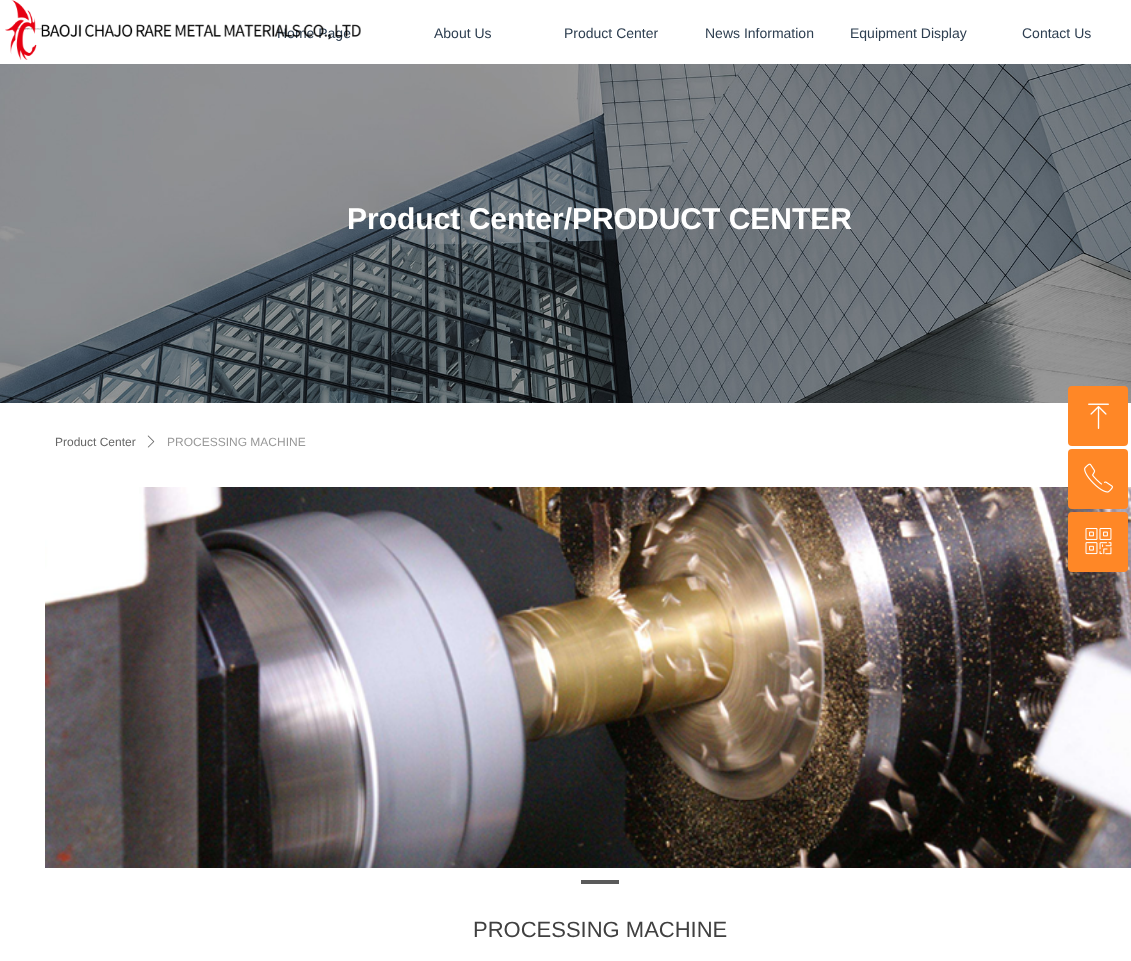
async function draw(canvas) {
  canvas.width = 1131
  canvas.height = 961
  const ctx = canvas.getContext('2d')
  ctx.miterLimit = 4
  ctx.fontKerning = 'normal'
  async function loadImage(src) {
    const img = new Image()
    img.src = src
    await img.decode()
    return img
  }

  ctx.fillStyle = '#fff'
  ctx.fillRect(0, 0, 1131, 961)
  ctx.drawImage(await loadImage('image1.png'), 12, 26, 30, 6)
  ctx.font = '14px Liberation Sans'
  ctx.fillStyle = '#2d3e50'
  ctx.fillText('Home Page', 277, 38)
  ctx.drawImage(await loadImage('image0.png'), 5, 0, 356, 60)
  ctx.fillText('About Us', 434, 38)
  ctx.fillText('Product Center', 564, 38)
  ctx.fillText('News Information', 705, 38)
  ctx.fillText('Equipment Display', 850, 38)
  ctx.fillText('Contact Us', 1022, 38)
  ctx.drawImage(await loadImage('image2.png'), 0, 64, 1131, 339)
  ctx.font = 'bold 30px Liberation Sans'
  ctx.fillStyle = '#fff'
  ctx.fillText('Product Center/PRODUCT CENTER', 347, 229)
  ctx.font = '12px Liberation Sans'
  ctx.fillStyle = '#666'
  ctx.fillText('Product Center', 55, 446)
  ctx.drawImage(await loadImage('image3.png'), 147, 435, 8, 13)
  ctx.fillStyle = '#999'
  ctx.fillText('PROCESSING MACHINE', 167, 446)
  ctx.drawImage(await loadImage('image4.png'), 45, 487, 1086, 381)
  ctx.fillStyle = '#5a5a5a'
  ctx.fillRect(581, 880, 38, 4)
  ctx.font = '22px Liberation Sans'
  ctx.fillStyle = '#404040'
  ctx.fillText('PROCESSING MACHINE', 473, 937)
  ctx.fillStyle = '#ff8726'
  ctx.beginPath()
  ctx.roundRect(1068, 386, 60, 60, 4)
  ctx.fill()
  ctx.drawImage(await loadImage('image5.png'), 1088, 403, 21, 26)
  ctx.beginPath()
  ctx.roundRect(1068, 449, 60, 60, 4)
  ctx.fill()
  ctx.drawImage(await loadImage('image6.png'), 1084, 463, 29, 30)
  ctx.beginPath()
  ctx.roundRect(1068, 512, 60, 60, 4)
  ctx.fill()
  ctx.drawImage(await loadImage('image7.png'), 1085, 528, 27, 27)
}

draw(document.querySelector('canvas'))
